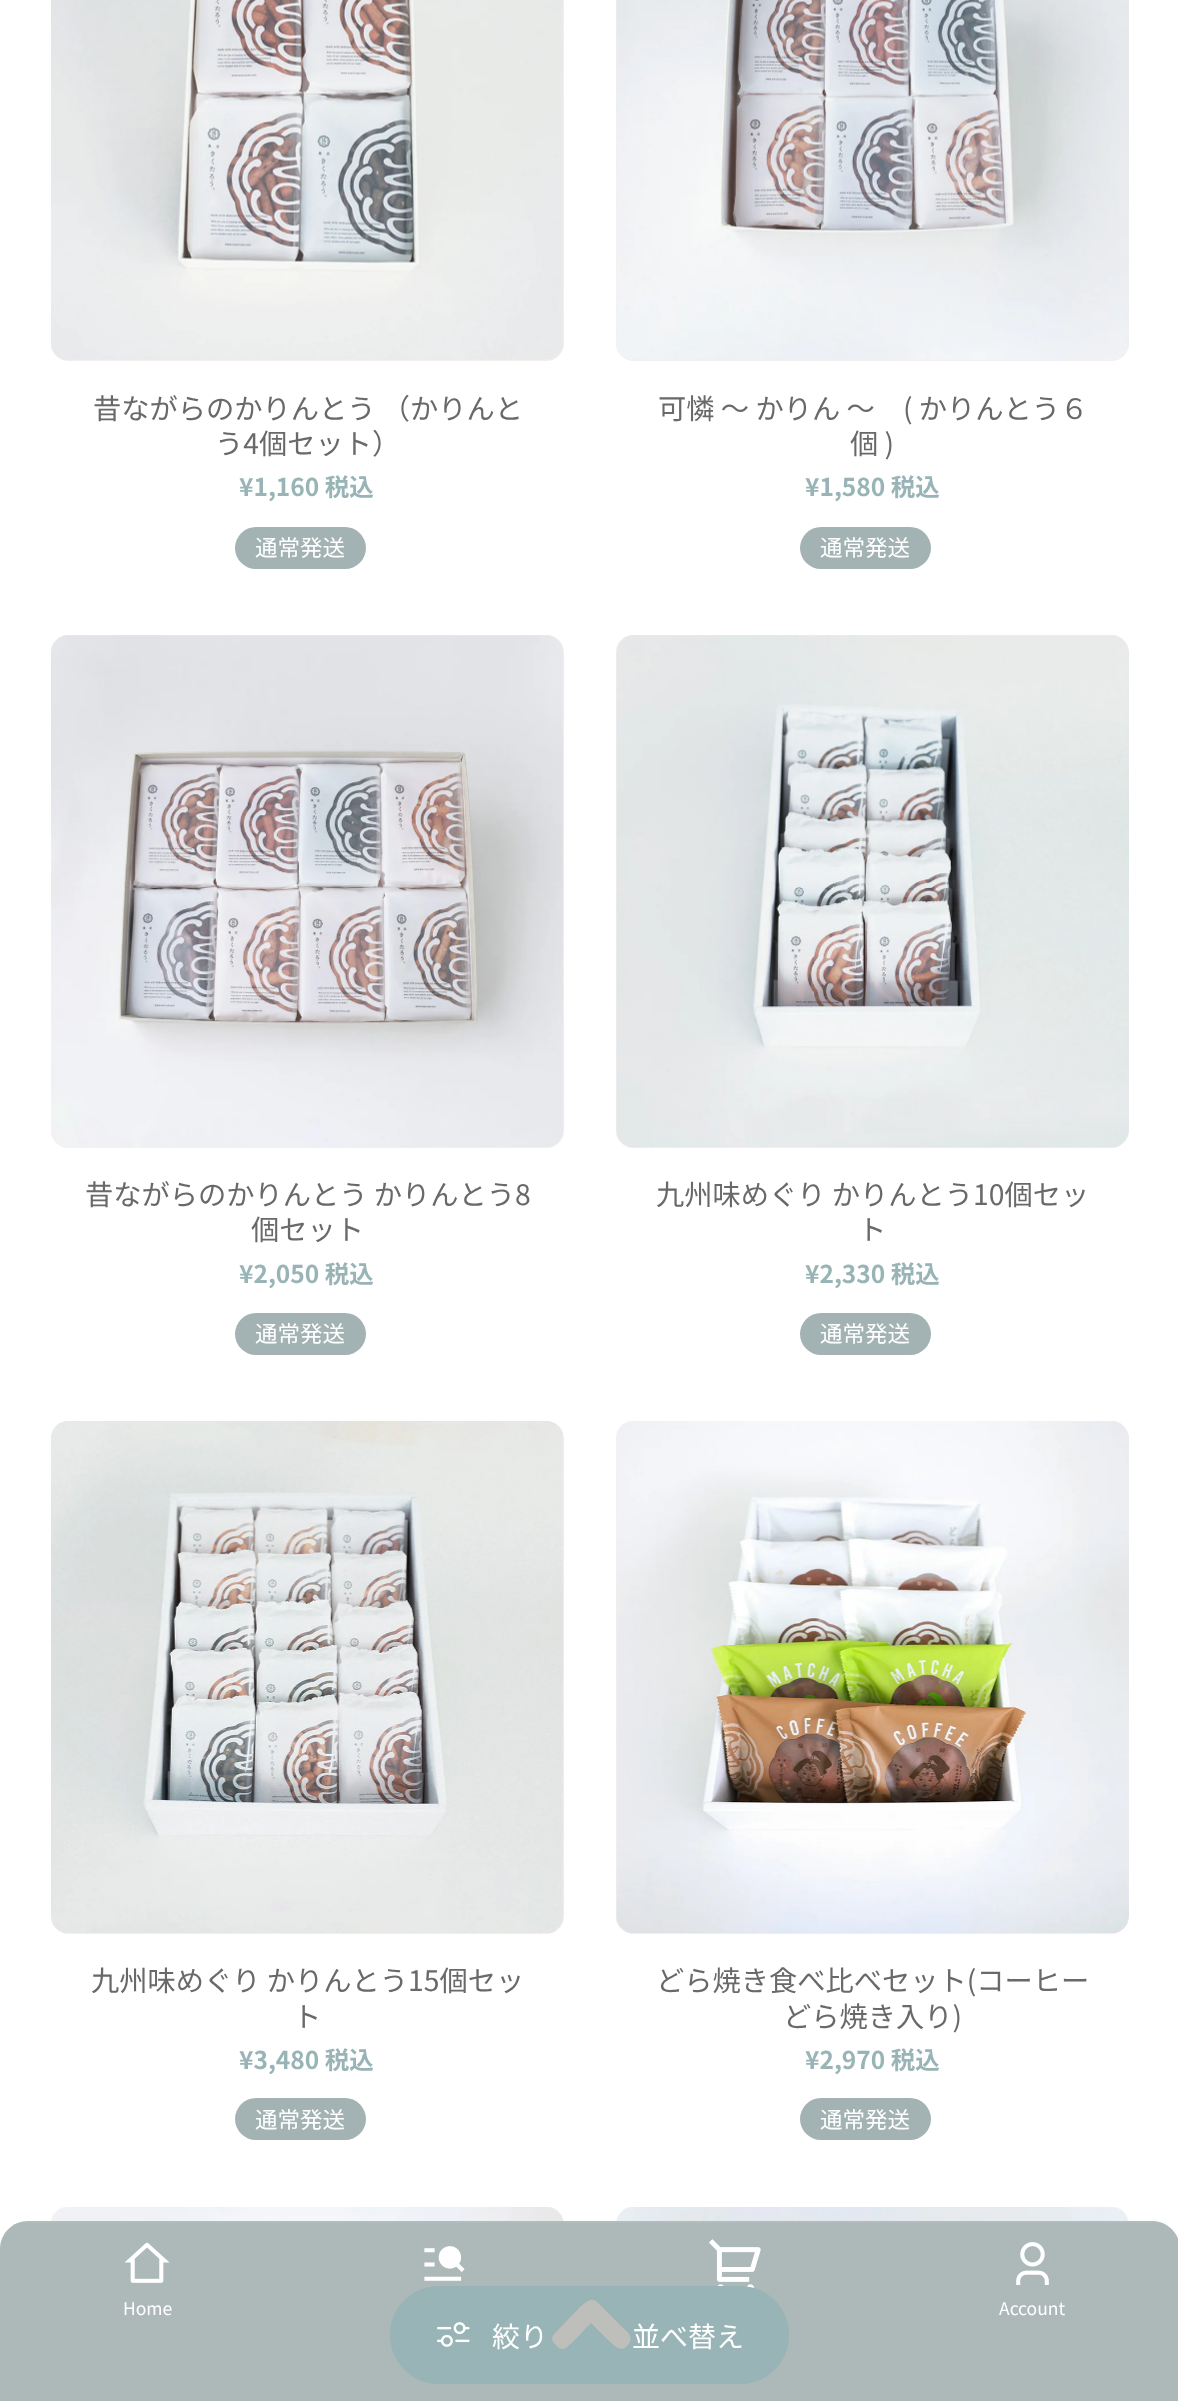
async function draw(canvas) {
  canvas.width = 1178
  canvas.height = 2401
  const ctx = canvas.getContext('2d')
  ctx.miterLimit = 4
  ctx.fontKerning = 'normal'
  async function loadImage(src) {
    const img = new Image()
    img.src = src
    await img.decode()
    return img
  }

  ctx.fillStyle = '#fff'
  ctx.fillRect(0, 0, 1178, 2401)
  ctx.fillStyle = '#f4eded'
  ctx.beginPath()
  ctx.roundRect(51, -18, 513, 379, 18)
  ctx.fill()
  ctx.drawImage(await loadImage('image0.png'), 51, 0, 512, 360)
  ctx.font = '28.25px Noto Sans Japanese'
  ctx.fillStyle = '#696969'
  ctx.fillText('昔ながらのかりんとう （かりんと', 93, 419)
  ctx.fillText('う4個セット）', 215, 454)
  ctx.font = 'bold 24.5px Noto Sans Japanese'
  ctx.fillStyle = '#99b4b6'
  ctx.fillText('¥1,160 税込', 239, 496)
  ctx.fillStyle = '#a3b2b3'
  ctx.beginPath()
  ctx.roundRect(235, 527, 131, 42, 21)
  ctx.fill()
  ctx.font = '22.5px Noto Sans Japanese'
  ctx.fillStyle = '#fff'
  ctx.fillText('通常発送', 255, 556)
  ctx.fillStyle = '#f4eded'
  ctx.beginPath()
  ctx.roundRect(616, -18, 513, 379, 18)
  ctx.fill()
  ctx.drawImage(await loadImage('image1.png'), 616, 0, 513, 360)
  ctx.font = '28.25px Noto Sans Japanese'
  ctx.fillStyle = '#696969'
  ctx.fillText('可憐 ～ かりん ～　( かりんとう６', 658, 419)
  ctx.fillText('個 )', 850, 454)
  ctx.font = 'bold 24.5px Noto Sans Japanese'
  ctx.fillStyle = '#99b4b6'
  ctx.fillText('¥1,580 税込', 805, 496)
  ctx.fillStyle = '#a3b2b3'
  ctx.beginPath()
  ctx.roundRect(800, 527, 131, 42, 21)
  ctx.fill()
  ctx.font = '22.5px Noto Sans Japanese'
  ctx.fillStyle = '#fff'
  ctx.fillText('通常発送', 820, 556)
  ctx.fillStyle = '#f4eded'
  ctx.beginPath()
  ctx.roundRect(51, 635, 513, 513, 18)
  ctx.fill()
  ctx.drawImage(await loadImage('image2.png'), 51, 635, 513, 513)
  ctx.font = '28.25px Noto Sans Japanese'
  ctx.fillStyle = '#696969'
  ctx.fillText('昔ながらのかりんとう かりんとう8', 85, 1205)
  ctx.fillText('個セット', 251, 1240)
  ctx.font = 'bold 24.5px Noto Sans Japanese'
  ctx.fillStyle = '#99b4b6'
  ctx.fillText('¥2,050 税込', 239, 1283)
  ctx.fillStyle = '#a3b2b3'
  ctx.beginPath()
  ctx.roundRect(235, 1313, 131, 42, 21)
  ctx.fill()
  ctx.font = '22.5px Noto Sans Japanese'
  ctx.fillStyle = '#fff'
  ctx.fillText('通常発送', 255, 1342)
  ctx.fillStyle = '#f4eded'
  ctx.beginPath()
  ctx.roundRect(616, 635, 513, 513, 18)
  ctx.fill()
  ctx.drawImage(await loadImage('image3.png'), 616, 635, 513, 513)
  ctx.font = '28.25px Noto Sans Japanese'
  ctx.fillStyle = '#696969'
  ctx.fillText('九州味めぐり かりんとう10個セッ', 656, 1205)
  ctx.fillText('ト', 858, 1240)
  ctx.font = 'bold 24.5px Noto Sans Japanese'
  ctx.fillStyle = '#99b4b6'
  ctx.fillText('¥2,330 税込', 805, 1283)
  ctx.fillStyle = '#a3b2b3'
  ctx.beginPath()
  ctx.roundRect(800, 1313, 131, 42, 21)
  ctx.fill()
  ctx.font = '22.5px Noto Sans Japanese'
  ctx.fillStyle = '#fff'
  ctx.fillText('通常発送', 820, 1342)
  ctx.fillStyle = '#f4eded'
  ctx.beginPath()
  ctx.roundRect(51, 1421, 513, 513, 18)
  ctx.fill()
  ctx.drawImage(await loadImage('image4.png'), 51, 1421, 513, 512)
  ctx.font = '28.25px Noto Sans Japanese'
  ctx.fillStyle = '#696969'
  ctx.fillText('九州味めぐり かりんとう15個セッ', 91, 1991)
  ctx.fillText('ト', 293, 2027)
  ctx.font = 'bold 24.5px Noto Sans Japanese'
  ctx.fillStyle = '#99b4b6'
  ctx.fillText('¥3,480 税込', 239, 2069)
  ctx.fillStyle = '#a3b2b3'
  ctx.beginPath()
  ctx.roundRect(235, 2098, 131, 42, 21)
  ctx.fill()
  ctx.font = '22.5px Noto Sans Japanese'
  ctx.fillStyle = '#fff'
  ctx.fillText('通常発送', 255, 2128)
  ctx.fillStyle = '#f4eded'
  ctx.beginPath()
  ctx.roundRect(616, 1421, 513, 513, 18)
  ctx.fill()
  ctx.drawImage(await loadImage('image5.png'), 616, 1421, 513, 512)
  ctx.font = '28.25px Noto Sans Japanese'
  ctx.fillStyle = '#696969'
  ctx.fillText('どら焼き食べ比べセット(コーヒー', 656, 1991)
  ctx.fillText('どら焼き入り)', 783, 2027)
  ctx.font = 'bold 24.5px Noto Sans Japanese'
  ctx.fillStyle = '#99b4b6'
  ctx.fillText('¥2,970 税込', 805, 2069)
  ctx.fillStyle = '#a3b2b3'
  ctx.beginPath()
  ctx.roundRect(800, 2098, 131, 42, 21)
  ctx.fill()
  ctx.font = '22.5px Noto Sans Japanese'
  ctx.fillStyle = '#fff'
  ctx.fillText('通常発送', 820, 2128)
  ctx.fillStyle = '#f4eded'
  ctx.beginPath()
  ctx.roundRect(51, 2207, 513, 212, 18)
  ctx.fill()
  ctx.drawImage(await loadImage('image6.png'), 51, 2207, 512, 14)
  ctx.drawImage(await loadImage('image7.png'), 616, 2207, 513, 14)
  ctx.fillStyle = '#acb9b8'
  ctx.beginPath()
  ctx.moveTo(28, 2221)
  ctx.lineTo(1152, 2221)
  ctx.bezierCurveTo(1167.5, 2221, 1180, 2233.5, 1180, 2249)
  ctx.lineTo(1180, 2401)
  ctx.lineTo(0, 2401)
  ctx.lineTo(0, 2249)
  ctx.bezierCurveTo(0, 2233.5, 12.5, 2221, 28, 2221)
  ctx.closePath()
  ctx.fill()
  ctx.drawImage(await loadImage('image10.png'), 709, 2239, 52, 50)
  ctx.fillStyle = '#99b4b6'
  ctx.beginPath()
  ctx.roundRect(391, 2287, 397, 96, 48)
  ctx.fill()
  ctx.strokeStyle = '#99b4b6'
  ctx.lineWidth = 2
  ctx.stroke()
  ctx.drawImage(await loadImage('image8.png'), 437, 2322, 33, 25)
  ctx.font = '28px Noto Sans Japanese'
  ctx.fillStyle = '#fff'
  ctx.fillText('絞り', 492, 2347)
  ctx.fillText('並べ替え', 632, 2347)
  ctx.fillStyle = '#bebeba'
  ctx.beginPath()
  ctx.moveTo(597, 2302)
  ctx.lineTo(618, 2323)
  ctx.bezierCurveTo(626, 2331, 637, 2337, 626, 2347)
  ctx.bezierCurveTo(619, 2353, 612, 2343, 607, 2339)
  ctx.lineTo(591, 2323)
  ctx.bezierCurveTo(587, 2327, 568, 2348, 564, 2349)
  ctx.bezierCurveTo(560, 2349, 558, 2348, 556, 2345)
  ctx.bezierCurveTo(548, 2338, 554, 2334, 560, 2328)
  ctx.lineTo(580, 2307)
  ctx.bezierCurveTo(585, 2303, 591, 2296, 597, 2302)
  ctx.closePath()
  ctx.fill('evenodd')
  ctx.fillStyle = '#ffffff0f'
  ctx.fillRect(14, 2221, 1152, 2)
  ctx.drawImage(await loadImage('image9.png'), 424, 2246, 41, 35)
  ctx.drawImage(await loadImage('image11.png'), 124, 2242, 46, 41)
  ctx.font = '17.5px Noto Sans Japanese'
  ctx.fillStyle = '#fff'
  ctx.fillText('Home', 123, 2315)
  ctx.drawImage(await loadImage('image12.png'), 1016, 2242, 33, 43)
  ctx.fillText('Account', 999, 2315)
}

draw(document.querySelector('canvas'))
